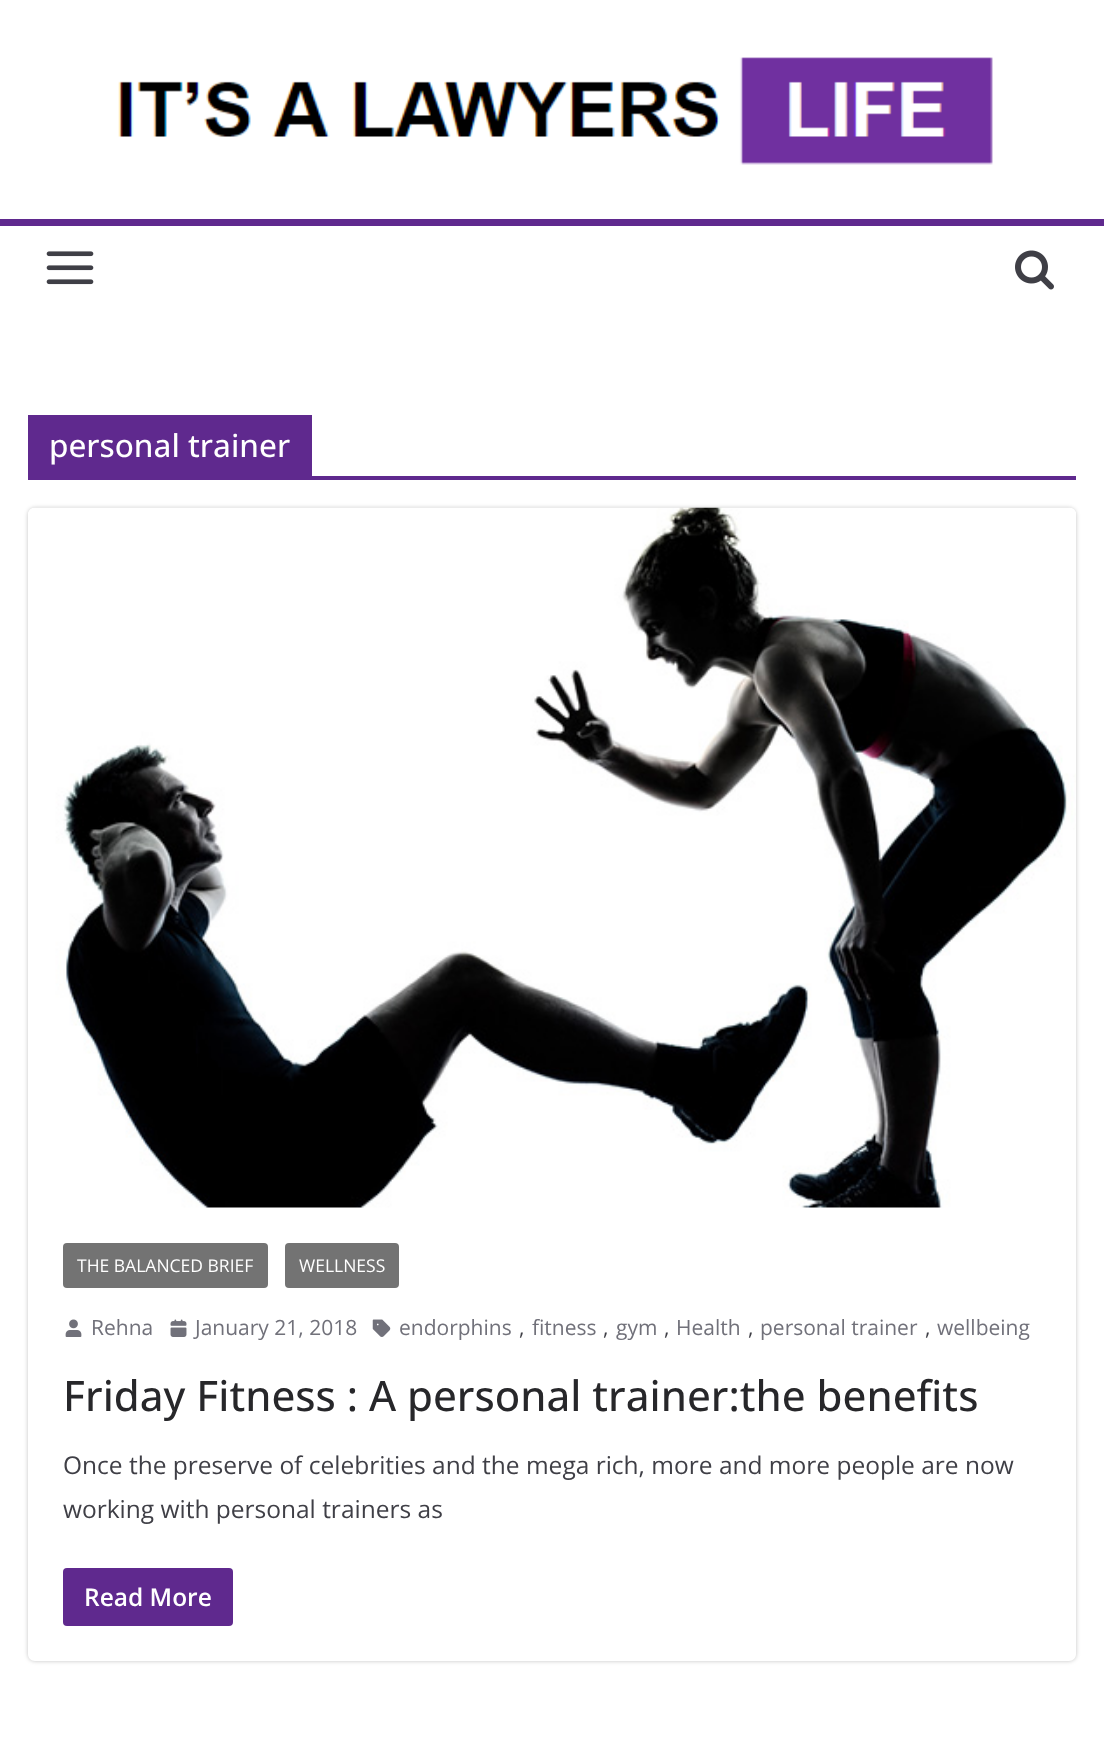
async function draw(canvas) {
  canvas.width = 1104
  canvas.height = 1745
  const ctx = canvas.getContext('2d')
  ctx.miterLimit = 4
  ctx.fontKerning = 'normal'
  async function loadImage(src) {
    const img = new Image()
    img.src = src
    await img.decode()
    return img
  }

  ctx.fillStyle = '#fff'
  ctx.fillRect(0, 0, 1104, 1745)
  ctx.drawImage(await loadImage('image0.png'), 118, 57, 875, 108)
  ctx.fillStyle = '#5f298e'
  ctx.fillRect(0, 219, 1104, 7)
  ctx.drawImage(await loadImage('image1.png'), 46, 251, 48, 34)
  ctx.drawImage(await loadImage('image2.png'), 1015, 250, 39, 40)
  ctx.fillRect(28, 476, 1048, 4)
  ctx.fillRect(28, 415, 284, 61)
  ctx.font = '500 31.5px Open Sans'
  ctx.fillStyle = '#fff'
  ctx.fillText('personal trainer', 49, 457)
  ctx.save()
  ctx.beginPath()
  ctx.moveTo(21, 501)
  ctx.lineTo(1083, 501)
  ctx.lineTo(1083, 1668)
  ctx.lineTo(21, 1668)
  ctx.closePath()
  ctx.moveTo(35, 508)
  ctx.lineTo(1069, 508)
  ctx.bezierCurveTo(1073, 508, 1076, 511, 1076, 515)
  ctx.lineTo(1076, 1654)
  ctx.bezierCurveTo(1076, 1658, 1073, 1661, 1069, 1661)
  ctx.lineTo(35, 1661)
  ctx.bezierCurveTo(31, 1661, 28, 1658, 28, 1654)
  ctx.lineTo(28, 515)
  ctx.bezierCurveTo(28, 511, 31, 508, 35, 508)
  ctx.closePath()
  ctx.clip('evenodd')
  ctx.fillStyle = '#0000003d'
  ctx.filter = 'blur(2px)'
  ctx.beginPath()
  ctx.roundRect(28, 508, 1048, 1153, 7)
  ctx.fill()
  ctx.filter = 'none'
  ctx.restore()
  ctx.drawImage(await loadImage('image3.png'), 28, 507, 1048, 701)
  ctx.fillStyle = '#737373'
  ctx.beginPath()
  ctx.roundRect(63, 1243, 205, 45, 4)
  ctx.fill()
  ctx.font = '17.5px Open Sans'
  ctx.fillStyle = '#fff'
  ctx.fillText('THE BALANCED BRIEF', 77, 1272)
  ctx.fillStyle = '#737373'
  ctx.beginPath()
  ctx.roundRect(285, 1243, 114, 45, 4)
  ctx.fill()
  ctx.fillStyle = '#fff'
  ctx.fillText('WELLNESS', 299, 1272)
  ctx.drawImage(await loadImage('image4.png'), 65, 1319, 17, 18)
  ctx.font = '21px Open Sans'
  ctx.fillStyle = '#71717a'
  ctx.fillText('Rehna', 91, 1335)
  ctx.drawImage(await loadImage('image5.png'), 170, 1319, 17, 18)
  ctx.fillText('January 21, 2018', 195, 1335)
  ctx.drawImage(await loadImage('image6.png'), 372, 1319, 19, 18)
  ctx.fillText('endorphins', 399, 1335)
  ctx.fillStyle = '#3f3f46'
  ctx.fillText(',', 519, 1335)
  ctx.fillStyle = '#71717a'
  ctx.fillText('fitness', 532, 1335)
  ctx.fillStyle = '#3f3f46'
  ctx.fillText(',', 603, 1335)
  ctx.fillStyle = '#71717a'
  ctx.fillText('gym', 616, 1335)
  ctx.fillStyle = '#3f3f46'
  ctx.fillText(',', 664, 1335)
  ctx.fillStyle = '#71717a'
  ctx.fillText('Health', 676, 1335)
  ctx.fillStyle = '#3f3f46'
  ctx.fillText(',', 748, 1335)
  ctx.fillStyle = '#71717a'
  ctx.fillText('personal trainer', 760, 1335)
  ctx.fillStyle = '#3f3f46'
  ctx.fillText(',', 925, 1335)
  ctx.fillStyle = '#71717a'
  ctx.fillText('wellbeing', 937, 1335)
  ctx.font = '500 42px Open Sans'
  ctx.fillStyle = '#27272a'
  ctx.fillText('Friday Fitness : A personal trainer:the benefits', 63, 1411)
  ctx.font = '24.5px Open Sans'
  ctx.fillStyle = '#3f3f46'
  ctx.fillText('Once the preserve of celebrities and the mega rich, more and more people are now', 63, 1474)
  ctx.fillText('working with personal trainers as', 63, 1518)
  ctx.fillStyle = '#5f298e'
  ctx.beginPath()
  ctx.roundRect(63, 1568, 170, 58, 4)
  ctx.fill()
  ctx.font = '600 24.5px Open Sans'
  ctx.fillStyle = '#fff'
  ctx.fillText('Read More', 84, 1606)
}

draw(document.querySelector('canvas'))
